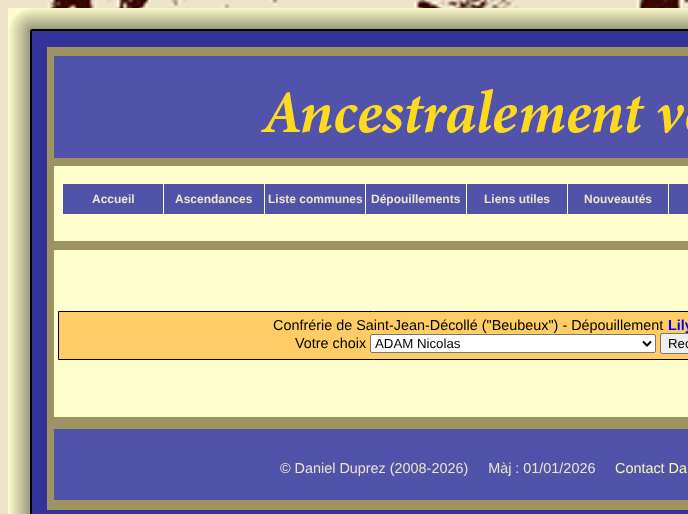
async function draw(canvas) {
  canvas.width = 688
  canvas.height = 514
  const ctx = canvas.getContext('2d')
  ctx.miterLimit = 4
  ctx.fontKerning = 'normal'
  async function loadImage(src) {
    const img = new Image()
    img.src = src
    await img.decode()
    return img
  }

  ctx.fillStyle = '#fff'
  ctx.fillRect(0, 0, 688, 514)
  ctx.drawImage(await loadImage('image0.png'), 0, 0, 688, 514)
  ctx.drawImage(await loadImage('image1.png'), 8, 8, 680, 162)
  ctx.drawImage(await loadImage('image2.png'), 8, 170, 680, 91)
  ctx.fillStyle = '#5153a9'
  ctx.fillRect(63, 184, 100, 30)
  ctx.font = 'bold 12px Liberation Sans'
  ctx.fillStyle = '#ede3ca'
  ctx.fillText('Accueil', 92, 203)
  ctx.fillStyle = '#5153a9'
  ctx.fillRect(164, 184, 100, 30)
  ctx.fillStyle = '#ede3ca'
  ctx.fillText('Ascendances', 175, 203)
  ctx.fillStyle = '#5153a9'
  ctx.fillRect(265, 184, 100, 30)
  ctx.fillStyle = '#ede3ca'
  ctx.fillText('Liste communes', 268, 203)
  ctx.fillStyle = '#5153a9'
  ctx.fillRect(366, 184, 100, 30)
  ctx.fillStyle = '#ede3ca'
  ctx.fillText('Dépouillements', 371, 203)
  ctx.fillStyle = '#5153a9'
  ctx.fillRect(467, 184, 100, 30)
  ctx.fillStyle = '#ede3ca'
  ctx.fillText('Liens utiles', 484, 203)
  ctx.fillStyle = '#5153a9'
  ctx.fillRect(568, 184, 100, 30)
  ctx.fillStyle = '#ede3ca'
  ctx.fillText('Nouveautés', 584, 203)
  ctx.fillStyle = '#5153a9'
  ctx.fillRect(669, 184, 19, 30)
  ctx.drawImage(await loadImage('image3.png'), 8, 261, 680, 149)
  ctx.fillStyle = '#fc6'
  ctx.beginPath()
  ctx.rect(58.5, 311.5, 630, 48)
  ctx.fill()
  ctx.strokeStyle = '#000'
  ctx.stroke()
  ctx.font = '14.4px Liberation Sans'
  ctx.fillStyle = '#000'
  ctx.fillText('Confrérie de Saint-Jean-Décollé ("Beubeux") - Dépouillement', 273, 330)
  ctx.font = 'bold 14.4px Liberation Sans'
  ctx.fillStyle = '#00f'
  ctx.fillText('Lily', 668, 330)
  ctx.font = '14.4px Liberation Sans'
  ctx.fillStyle = '#000'
  ctx.fillText('Votre choix', 295, 348)
  ctx.fillStyle = '#fff'
  ctx.beginPath()
  ctx.roundRect(370.5, 334.5, 285, 18, 1.5)
  ctx.fill()
  ctx.strokeStyle = '#767676'
  ctx.stroke()
  ctx.beginPath()
  ctx.moveTo(643, 341.5)
  ctx.lineTo(647, 345.5)
  ctx.lineTo(651, 341.5)
  ctx.strokeStyle = '#000'
  ctx.lineWidth = 2
  ctx.stroke()
  ctx.font = '13.25px Liberation Sans'
  ctx.fillStyle = '#000'
  ctx.fillText('ADAM Nicolas', 375, 348)
  ctx.fillStyle = '#efefef'
  ctx.beginPath()
  ctx.roundRect(660.5, 333.5, 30, 20, 1.5)
  ctx.fill()
  ctx.strokeStyle = '#767676'
  ctx.lineWidth = 1
  ctx.stroke()
  ctx.fillStyle = '#000'
  ctx.fillText('Rec', 668, 348)
  ctx.drawImage(await loadImage('image4.png'), 8, 410, 680, 104)
  ctx.font = '14.4px Liberation Sans'
  ctx.fillStyle = '#ede3ca'
  ctx.fillText('© Daniel Duprez (2008-2026)     Màj : 01/01/2026', 280, 473)
  ctx.fillStyle = '#f7f6b9'
  ctx.fillText('Contact Da', 615, 473)
}

draw(document.querySelector('canvas'))
